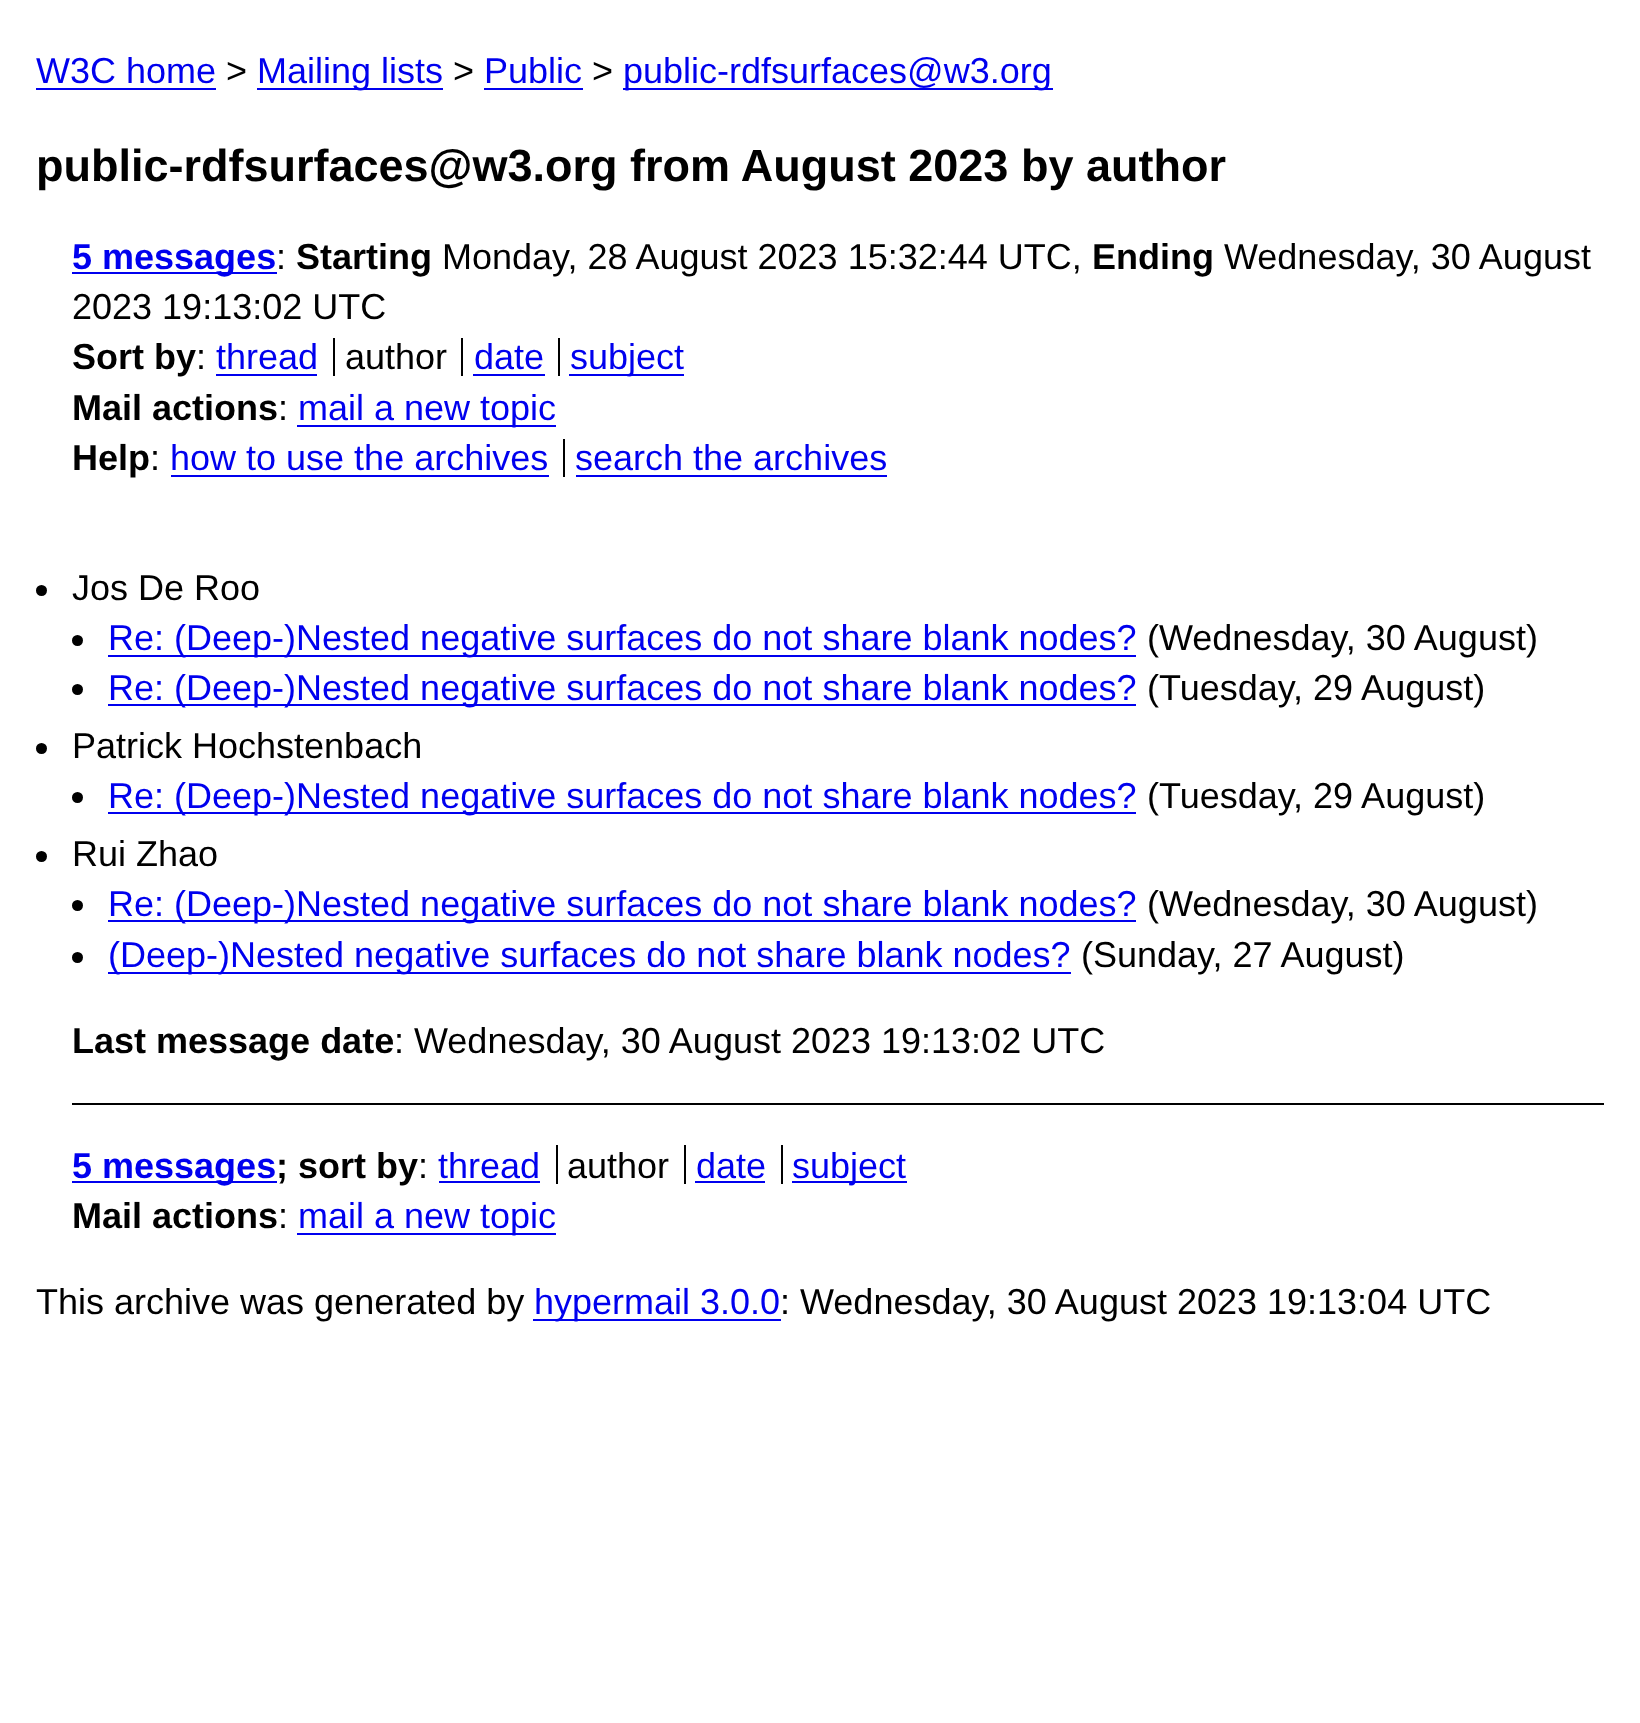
async function draw(canvas) {
  canvas.width = 1640
  canvas.height = 1723
  const ctx = canvas.getContext('2d')
  ctx.miterLimit = 4
  ctx.fontKerning = 'normal'

  ctx.fillStyle = '#fff'
  ctx.fillRect(0, 0, 1640, 1723)
  ctx.font = '36px Liberation Sans'
  ctx.fillStyle = '#00e'
  ctx.fillText('W3C home', 36, 83)
  ctx.fillRect(36, 88, 180, 2)
  ctx.fillStyle = '#000'
  ctx.fillText('>', 226, 83)
  ctx.fillStyle = '#00e'
  ctx.fillRect(257, 88, 186, 2)
  ctx.fillText('Mailing lists', 257, 83)
  ctx.fillStyle = '#000'
  ctx.fillText('>', 453, 83)
  ctx.fillStyle = '#00e'
  ctx.fillText('Public', 484, 83)
  ctx.fillRect(484, 88, 99, 2)
  ctx.fillStyle = '#000'
  ctx.fillText('>', 592, 83)
  ctx.fillStyle = '#00e'
  ctx.fillRect(623, 88, 430, 2)
  ctx.fillText('public-rdfsurfaces@w3.org', 623, 83)
  ctx.font = 'bold 45px Liberation Sans'
  ctx.fillStyle = '#000'
  ctx.fillText('public-rdfsurfaces@w3.org from August 2023 by author', 36, 181)
  ctx.fillStyle = '#00e'
  ctx.fillRect(72, 272, 205, 2)
  ctx.font = 'bold 36px Liberation Sans'
  ctx.fillText('5 messages', 72, 269)
  ctx.font = '36px Liberation Sans'
  ctx.fillStyle = '#000'
  ctx.fillText(':', 276, 269)
  ctx.font = 'bold 36px Liberation Sans'
  ctx.fillText('Starting', 296, 269)
  ctx.font = '36px Liberation Sans'
  ctx.fillText('Monday, 28 August 2023 15:32:44 UTC,', 442, 269)
  ctx.font = 'bold 36px Liberation Sans'
  ctx.fillText('Ending', 1092, 269)
  ctx.font = '36px Liberation Sans'
  ctx.fillText('Wednesday, 30 August', 1224, 269)
  ctx.fillText('2023 19:13:02 UTC', 72, 319)
  ctx.font = 'bold 36px Liberation Sans'
  ctx.fillText('Sort by', 72, 369)
  ctx.font = '36px Liberation Sans'
  ctx.fillText(':', 196, 369)
  ctx.fillStyle = '#00e'
  ctx.fillText('thread', 216, 369)
  ctx.fillRect(216, 374, 101, 2)
  ctx.fillStyle = '#000'
  ctx.fillText('author', 345, 369)
  ctx.fillRect(333, 338, 2, 38)
  ctx.fillStyle = '#00e'
  ctx.fillText('date', 474, 369)
  ctx.fillStyle = '#000'
  ctx.fillRect(461, 338, 2, 38)
  ctx.fillStyle = '#00e'
  ctx.fillRect(473, 374, 72, 2)
  ctx.fillRect(569, 374, 115, 2)
  ctx.fillText('subject', 570, 369)
  ctx.fillStyle = '#000'
  ctx.fillRect(558, 338, 2, 38)
  ctx.font = 'bold 36px Liberation Sans'
  ctx.fillText('Mail actions', 72, 420)
  ctx.font = '36px Liberation Sans'
  ctx.fillText(':', 278, 420)
  ctx.fillStyle = '#00e'
  ctx.fillRect(297, 425, 259, 2)
  ctx.fillText('mail a new topic', 298, 420)
  ctx.font = 'bold 36px Liberation Sans'
  ctx.fillStyle = '#000'
  ctx.fillText('Help', 72, 470)
  ctx.font = '36px Liberation Sans'
  ctx.fillText(':', 150, 470)
  ctx.fillStyle = '#00e'
  ctx.fillText('how to use the archives', 170, 470)
  ctx.fillRect(171, 475, 378, 2)
  ctx.fillText('search the archives', 575, 470)
  ctx.fillStyle = '#000'
  ctx.fillRect(563, 439, 2, 38)
  ctx.fillStyle = '#00e'
  ctx.fillRect(576, 475, 311, 2)
  ctx.fillStyle = '#000'
  ctx.fillRect(72, 1103, 1532, 2)
  ctx.beginPath()
  ctx.arc(41.5, 590.5, 5.5, 0, 2 * Math.PI)
  ctx.fill()
  ctx.fillText('Jos De Roo', 72, 600)
  ctx.beginPath()
  ctx.arc(77.5, 640.5, 5.5, 0, 2 * Math.PI)
  ctx.fill()
  ctx.fillStyle = '#00e'
  ctx.fillRect(108, 655, 1028, 2)
  ctx.fillText('Re: (Deep-)Nested negative surfaces do not share blank nodes?', 108, 650)
  ctx.fillStyle = '#000'
  ctx.fillText('(Wednesday, 30 August)', 1147, 650)
  ctx.beginPath()
  ctx.arc(77.5, 689.5, 5.5, 0, 2 * Math.PI)
  ctx.fill()
  ctx.fillStyle = '#00e'
  ctx.fillRect(108, 704, 1028, 2)
  ctx.fillText('Re: (Deep-)Nested negative surfaces do not share blank nodes?', 108, 700)
  ctx.fillStyle = '#000'
  ctx.fillText('(Tuesday, 29 August)', 1147, 700)
  ctx.beginPath()
  ctx.arc(41.5, 748.5, 5.5, 0, 2 * Math.PI)
  ctx.fill()
  ctx.fillText('Patrick Hochstenbach', 72, 758)
  ctx.beginPath()
  ctx.arc(77.5, 797.5, 5.5, 0, 2 * Math.PI)
  ctx.fill()
  ctx.fillStyle = '#00e'
  ctx.fillRect(108, 812, 1028, 2)
  ctx.fillText('Re: (Deep-)Nested negative surfaces do not share blank nodes?', 108, 808)
  ctx.fillStyle = '#000'
  ctx.fillText('(Tuesday, 29 August)', 1147, 808)
  ctx.beginPath()
  ctx.arc(41.5, 856.5, 5.5, 0, 2 * Math.PI)
  ctx.fill()
  ctx.fillText('Rui Zhao', 72, 866)
  ctx.beginPath()
  ctx.arc(77.5, 905.5, 5.5, 0, 2 * Math.PI)
  ctx.fill()
  ctx.fillStyle = '#00e'
  ctx.fillRect(108, 920, 1028, 2)
  ctx.fillText('Re: (Deep-)Nested negative surfaces do not share blank nodes?', 108, 916)
  ctx.fillStyle = '#000'
  ctx.fillText('(Wednesday, 30 August)', 1147, 916)
  ctx.beginPath()
  ctx.arc(77.5, 957.5, 5.5, 0, 2 * Math.PI)
  ctx.fill()
  ctx.fillStyle = '#00e'
  ctx.fillRect(108, 972, 963, 2)
  ctx.fillText('(Deep-)Nested negative surfaces do not share blank nodes?', 108, 967)
  ctx.fillStyle = '#000'
  ctx.fillText('(Sunday, 27 August)', 1081, 967)
  ctx.font = 'bold 36px Liberation Sans'
  ctx.fillText('Last message date', 72, 1053)
  ctx.font = '36px Liberation Sans'
  ctx.fillText(': Wednesday, 30 August 2023 19:13:02 UTC', 394, 1053)
  ctx.fillStyle = '#00e'
  ctx.fillRect(72, 1181, 205, 2)
  ctx.font = 'bold 36px Liberation Sans'
  ctx.fillText('5 messages', 72, 1178)
  ctx.fillStyle = '#000'
  ctx.fillText('; sort by', 276, 1178)
  ctx.font = '36px Liberation Sans'
  ctx.fillText(':', 418, 1178)
  ctx.fillStyle = '#00e'
  ctx.fillText('thread', 438, 1178)
  ctx.fillRect(439, 1181, 101, 2)
  ctx.fillStyle = '#000'
  ctx.fillText('author', 567, 1178)
  ctx.fillRect(556, 1145, 2, 39)
  ctx.fillStyle = '#00e'
  ctx.fillText('date', 696, 1178)
  ctx.fillStyle = '#000'
  ctx.fillRect(684, 1145, 2, 39)
  ctx.fillRect(781, 1145, 2, 39)
  ctx.fillStyle = '#00e'
  ctx.fillRect(695, 1181, 70, 2)
  ctx.fillRect(792, 1181, 115, 2)
  ctx.fillText('subject', 792, 1178)
  ctx.font = 'bold 36px Liberation Sans'
  ctx.fillStyle = '#000'
  ctx.fillText('Mail actions', 72, 1228)
  ctx.font = '36px Liberation Sans'
  ctx.fillText(':', 278, 1228)
  ctx.fillStyle = '#00e'
  ctx.fillRect(297, 1233, 259, 2)
  ctx.fillText('mail a new topic', 298, 1228)
  ctx.fillStyle = '#000'
  ctx.fillText('This archive was generated by', 36, 1314)
  ctx.fillStyle = '#00e'
  ctx.fillRect(533, 1319, 248, 2)
  ctx.fillText('hypermail 3.0.0', 534, 1314)
  ctx.fillStyle = '#000'
  ctx.fillText(': Wednesday, 30 August 2023 19:13:04 UTC', 780, 1314)
}

draw(document.querySelector('canvas'))
